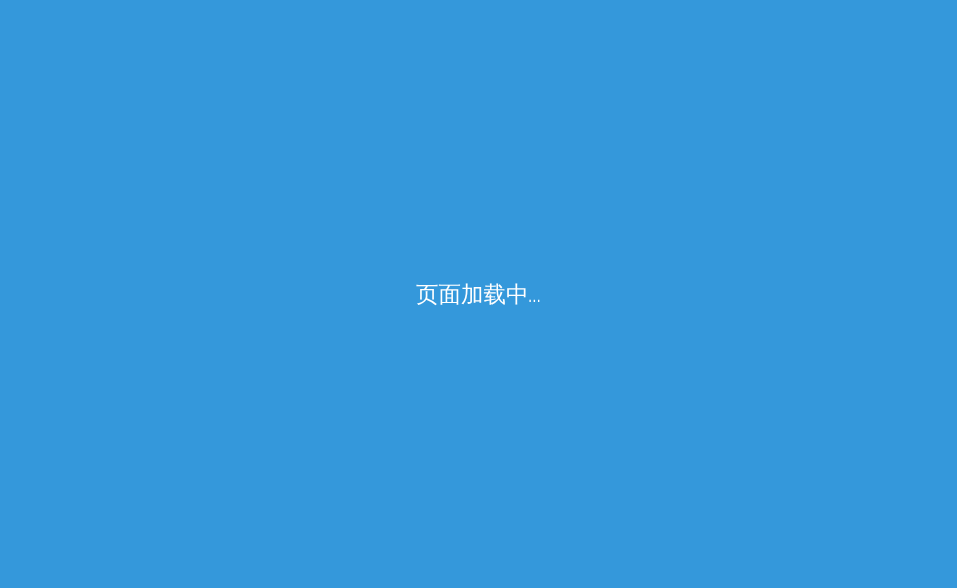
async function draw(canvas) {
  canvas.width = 957
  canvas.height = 588
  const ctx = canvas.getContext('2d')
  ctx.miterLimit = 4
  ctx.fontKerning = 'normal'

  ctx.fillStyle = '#3498db'
  ctx.fillRect(0, 0, 957, 588)
  ctx.font = '500 22.5px WenQuanYi Zen Hei'
  ctx.fillStyle = '#fff'
  ctx.fillText('页面加载中', 416, 302)
  ctx.font = '22.5px Raleway'
  ctx.fillText('...', 528, 302)
}

draw(document.querySelector('canvas'))
